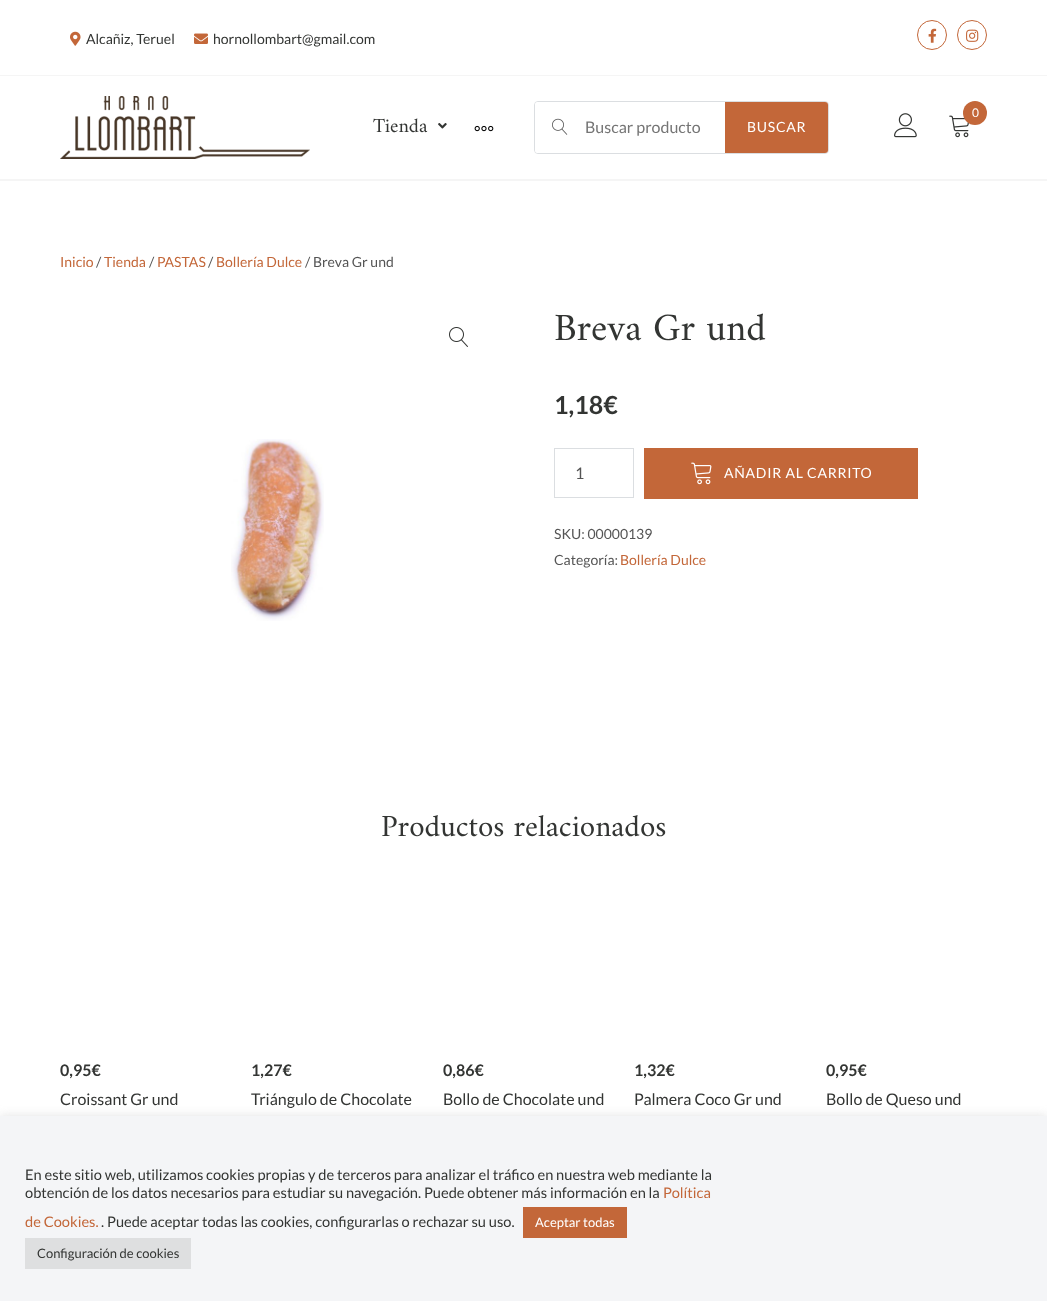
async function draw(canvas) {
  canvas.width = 1047
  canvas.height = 1301
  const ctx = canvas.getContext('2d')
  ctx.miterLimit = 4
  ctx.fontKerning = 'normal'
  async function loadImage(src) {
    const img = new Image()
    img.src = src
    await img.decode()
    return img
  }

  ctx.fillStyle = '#fff'
  ctx.fillRect(0, 0, 1047, 1301)
  ctx.fillStyle = '#f5f5f5'
  ctx.fillRect(0, 179, 1047, 2)
  ctx.fillRect(0, 75, 1047, 1)
  ctx.drawImage(await loadImage('image0.png'), 70, 31, 11, 15)
  ctx.font = '14px Lato'
  ctx.fillStyle = '#333533'
  ctx.fillText('Alcañiz, Teruel', 86, 44)
  ctx.drawImage(await loadImage('image1.png'), 194, 33, 14, 11)
  ctx.fillText('hornollombart@gmail.com', 213, 44)
  ctx.beginPath()
  ctx.arc(932, 35, 14.5, 0, 2 * Math.PI)
  ctx.strokeStyle = '#c36739'
  ctx.stroke()
  ctx.drawImage(await loadImage('image2.png'), 928, 28, 9, 15)
  ctx.beginPath()
  ctx.arc(972, 35, 14.5, 0, 2 * Math.PI)
  ctx.stroke()
  ctx.drawImage(await loadImage('image3.png'), 966, 29, 13, 13)
  ctx.drawImage(await loadImage('image4.png'), 60, 96, 250, 63)
  ctx.font = '20px Amiri'
  ctx.fillText('Tienda', 373, 132)
  ctx.drawImage(await loadImage('image5.png'), 438, 123, 9, 6)
  ctx.drawImage(await loadImage('image6.png'), 474, 125, 20, 7)
  ctx.beginPath()
  ctx.roundRect(534.5, 101.5, 294, 52, 3.5)
  ctx.strokeStyle = '#dbdee1'
  ctx.stroke()
  ctx.fillStyle = '#fff'
  ctx.beginPath()
  ctx.roundRect(535, 102, 190, 51, [3, 0, 0, 3])
  ctx.fill()
  ctx.drawImage(await loadImage('image7.png'), 552, 118, 16, 17)
  ctx.font = '16px Lato'
  ctx.fillStyle = '#757575'
  ctx.fillText('Buscar producto', 585, 133)
  ctx.fillStyle = '#c36739'
  ctx.beginPath()
  ctx.roundRect(725, 102, 103, 51, [0, 3, 3, 0])
  ctx.fill()
  ctx.letterSpacing = '0.75px'
  ctx.font = '14px Lato'
  ctx.fillStyle = '#fff'
  ctx.fillText('BUSCAR', 747, 132)
  ctx.drawImage(await loadImage('image8.png'), 894, 113, 23, 25)
  ctx.drawImage(await loadImage('image9.png'), 949, 115, 20, 23)
  ctx.fillStyle = '#c36739'
  ctx.beginPath()
  ctx.arc(975, 113, 12, 0, 2 * Math.PI)
  ctx.fill()
  ctx.letterSpacing = '0px'
  ctx.font = '12px Lato'
  ctx.fillStyle = '#fff'
  ctx.fillText('0', 972, 117)
  ctx.font = '14px Lato'
  ctx.fillStyle = '#c36739'
  ctx.fillText('Inicio', 60, 267)
  ctx.fillStyle = '#555'
  ctx.fillText('/', 96, 267)
  ctx.fillStyle = '#c36739'
  ctx.fillText('Tienda', 104, 267)
  ctx.fillStyle = '#555'
  ctx.fillText('/', 149, 267)
  ctx.fillStyle = '#c36739'
  ctx.fillText('PASTAS', 157, 267)
  ctx.fillStyle = '#555'
  ctx.fillText('/', 208, 267)
  ctx.fillStyle = '#c36739'
  ctx.fillText('Bollería Dulce', 216, 267)
  ctx.fillStyle = '#555'
  ctx.fillText('/ Breva Gr und', 305, 267)
  ctx.drawImage(await loadImage('image10.png'), 449, 327, 19, 20)
  ctx.drawImage(await loadImage('image11.png'), 231, 439, 93, 182)
  ctx.font = '39px Amiri'
  ctx.fillStyle = '#333533'
  ctx.fillText('Breva Gr und', 554, 340)
  ctx.font = 'bold 25px Lato'
  ctx.fillText('1,18€', 554, 414)
  ctx.strokeRect(554.5, 448.5, 79, 49)
  ctx.font = '16px Lato'
  ctx.fillStyle = '#555'
  ctx.fillText('1', 575, 479)
  ctx.fillStyle = '#c36739'
  ctx.fillRect(644, 448, 274, 51)
  ctx.drawImage(await loadImage('image12.png'), 691, 462, 21, 23)
  ctx.letterSpacing = '0.75px'
  ctx.font = '14px Lato'
  ctx.fillStyle = '#fff'
  ctx.fillText('AÑADIR AL CARRITO', 724, 478)
  ctx.letterSpacing = '0px'
  ctx.fillStyle = '#555'
  ctx.fillText('SKU: 00000139', 554, 539)
  ctx.fillText('Categoría:', 554, 565)
  ctx.fillStyle = '#c36739'
  ctx.fillText('Bollería Dulce', 620, 565)
  ctx.font = '31px Amiri'
  ctx.fillStyle = '#333533'
  ctx.fillText('Productos relacionados', 381, 836)
  ctx.font = 'bold 16px Lato'
  ctx.fillText('0,95€', 60, 1076)
  ctx.font = '16px Lato'
  ctx.fillText('Croissant Gr und', 60, 1105)
  ctx.font = 'bold 16px Lato'
  ctx.fillText('1,27€', 251, 1076)
  ctx.font = '16px Lato'
  ctx.fillText('Triángulo de Chocolate', 251, 1105)
  ctx.font = 'bold 16px Lato'
  ctx.fillText('0,86€', 443, 1076)
  ctx.font = '16px Lato'
  ctx.fillText('Bollo de Chocolate und', 443, 1105)
  ctx.font = 'bold 16px Lato'
  ctx.fillText('1,32€', 634, 1076)
  ctx.font = '16px Lato'
  ctx.fillText('Palmera Coco Gr und', 634, 1105)
  ctx.font = 'bold 16px Lato'
  ctx.fillText('0,95€', 826, 1076)
  ctx.font = '16px Lato'
  ctx.fillText('Bollo de Queso und', 826, 1105)
  ctx.fillStyle = '#acabab4d'
  ctx.filter = 'blur(5px)'
  ctx.beginPath()
  ctx.rect(0, 1115, 1047, 185)
  ctx.fill()
  ctx.filter = 'none'
  ctx.fillStyle = '#f4f5f7'
  ctx.fillRect(0, 1116, 1047, 185)
  ctx.font = '14.65px Lato'
  ctx.fillStyle = '#333533'
  ctx.fillText('En este sitio web, utilizamos cookies propias y de terceros para analizar el tráfico en nuestra web mediante la', 25, 1180)
  ctx.fillText('obtención de los datos necesarios para estudiar su navegación. Puede obtener más información en la', 25, 1198)
  ctx.fillStyle = '#c36739'
  ctx.fillText('Política', 663, 1198)
  ctx.fillText('de Cookies.', 25, 1227)
  ctx.fillStyle = '#333533'
  ctx.fillText('. Puede aceptar todas las cookies, configurarlas o rechazar su uso.', 101, 1227)
  ctx.fillStyle = '#c36739'
  ctx.fillRect(523, 1207, 104, 31)
  ctx.font = '13px Lato'
  ctx.fillStyle = '#fff'
  ctx.fillText('Aceptar todas', 535, 1227)
  ctx.fillStyle = '#dedfe0'
  ctx.fillRect(25, 1238, 166, 31)
  ctx.fillStyle = '#333533'
  ctx.fillText('Configuración de cookies', 37, 1258)
}

draw(document.querySelector('canvas'))
